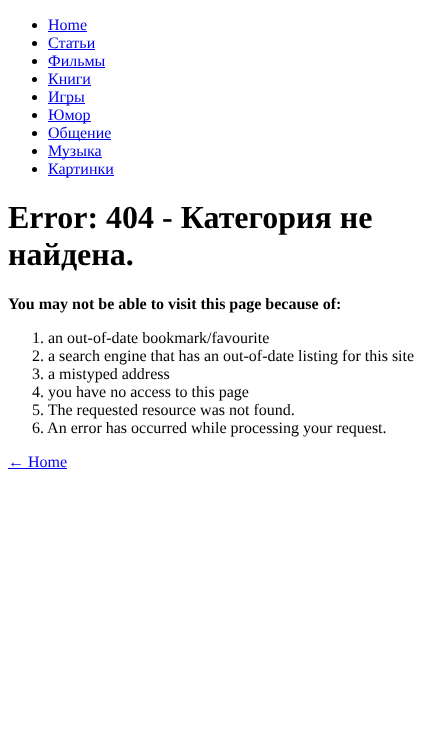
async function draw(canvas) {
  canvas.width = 430
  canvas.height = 736
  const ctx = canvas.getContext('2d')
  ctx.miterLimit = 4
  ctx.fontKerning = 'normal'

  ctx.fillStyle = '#fff'
  ctx.fillRect(0, 0, 430, 736)
  ctx.fillStyle = '#000'
  ctx.beginPath()
  ctx.arc(34.5, 25.5, 2.5, 0, 2 * Math.PI)
  ctx.fill()
  ctx.font = '16px Liberation Serif'
  ctx.fillStyle = '#00e'
  ctx.fillText('Home', 48, 30)
  ctx.fillRect(48, 31, 39, 1)
  ctx.fillStyle = '#000'
  ctx.beginPath()
  ctx.arc(34.5, 43.5, 2.5, 0, 2 * Math.PI)
  ctx.fill()
  ctx.fillStyle = '#00e'
  ctx.fillText('Статьи', 48, 48)
  ctx.fillRect(48, 49, 47, 1)
  ctx.fillStyle = '#000'
  ctx.beginPath()
  ctx.arc(34.5, 61.5, 2.5, 0, 2 * Math.PI)
  ctx.fill()
  ctx.fillStyle = '#00e'
  ctx.fillText('Фильмы', 48, 66)
  ctx.fillRect(48, 67, 57, 1)
  ctx.fillStyle = '#000'
  ctx.beginPath()
  ctx.arc(34.5, 79.5, 2.5, 0, 2 * Math.PI)
  ctx.fill()
  ctx.fillStyle = '#00e'
  ctx.fillText('Книги', 48, 84)
  ctx.fillRect(48, 85, 43, 1)
  ctx.fillStyle = '#000'
  ctx.beginPath()
  ctx.arc(34.5, 97.5, 2.5, 0, 2 * Math.PI)
  ctx.fill()
  ctx.fillStyle = '#00e'
  ctx.fillRect(48, 103, 37, 1)
  ctx.fillText('Игры', 48, 102)
  ctx.fillStyle = '#000'
  ctx.beginPath()
  ctx.arc(34.5, 115.5, 2.5, 0, 2 * Math.PI)
  ctx.fill()
  ctx.fillStyle = '#00e'
  ctx.fillRect(48, 121, 43, 1)
  ctx.fillText('Юмор', 48, 120)
  ctx.fillStyle = '#000'
  ctx.beginPath()
  ctx.arc(34.5, 133.5, 2.5, 0, 2 * Math.PI)
  ctx.fill()
  ctx.fillStyle = '#00e'
  ctx.fillRect(48, 139, 63, 1)
  ctx.fillText('Общение', 48, 138)
  ctx.fillStyle = '#000'
  ctx.beginPath()
  ctx.arc(34.5, 151.5, 2.5, 0, 2 * Math.PI)
  ctx.fill()
  ctx.fillStyle = '#00e'
  ctx.fillRect(48, 157, 54, 1)
  ctx.fillText('Музыка', 48, 156)
  ctx.fillStyle = '#000'
  ctx.beginPath()
  ctx.arc(34.5, 169.5, 2.5, 0, 2 * Math.PI)
  ctx.fill()
  ctx.fillStyle = '#00e'
  ctx.fillRect(48, 175, 66, 1)
  ctx.fillText('Картинки', 48, 174)
  ctx.font = 'bold 32px Liberation Serif'
  ctx.fillStyle = '#000'
  ctx.fillText('Error: 404 - Категория не', 8, 228)
  ctx.fillText('найдена.', 8, 265)
  ctx.font = 'bold 16px Liberation Serif'
  ctx.fillText('You may not be able to visit this page because of:', 8, 309)
  ctx.font = '16px Liberation Serif'
  ctx.fillText('1. an out-of-date bookmark/favourite', 32, 343)
  ctx.fillText('2. a search engine that has an out-of-date listing for this site', 32, 361)
  ctx.fillText('3. a mistyped address', 32, 379)
  ctx.fillText('4. you have no access to this page', 32, 397)
  ctx.fillText('5. The requested resource was not found.', 32, 415)
  ctx.fillText('6. An error has occurred while processing your request.', 32, 433)
  ctx.fillStyle = '#00e'
  ctx.fillText('← Home', 8, 467)
  ctx.fillRect(8, 468, 59, 1)
}

draw(document.querySelector('canvas'))
